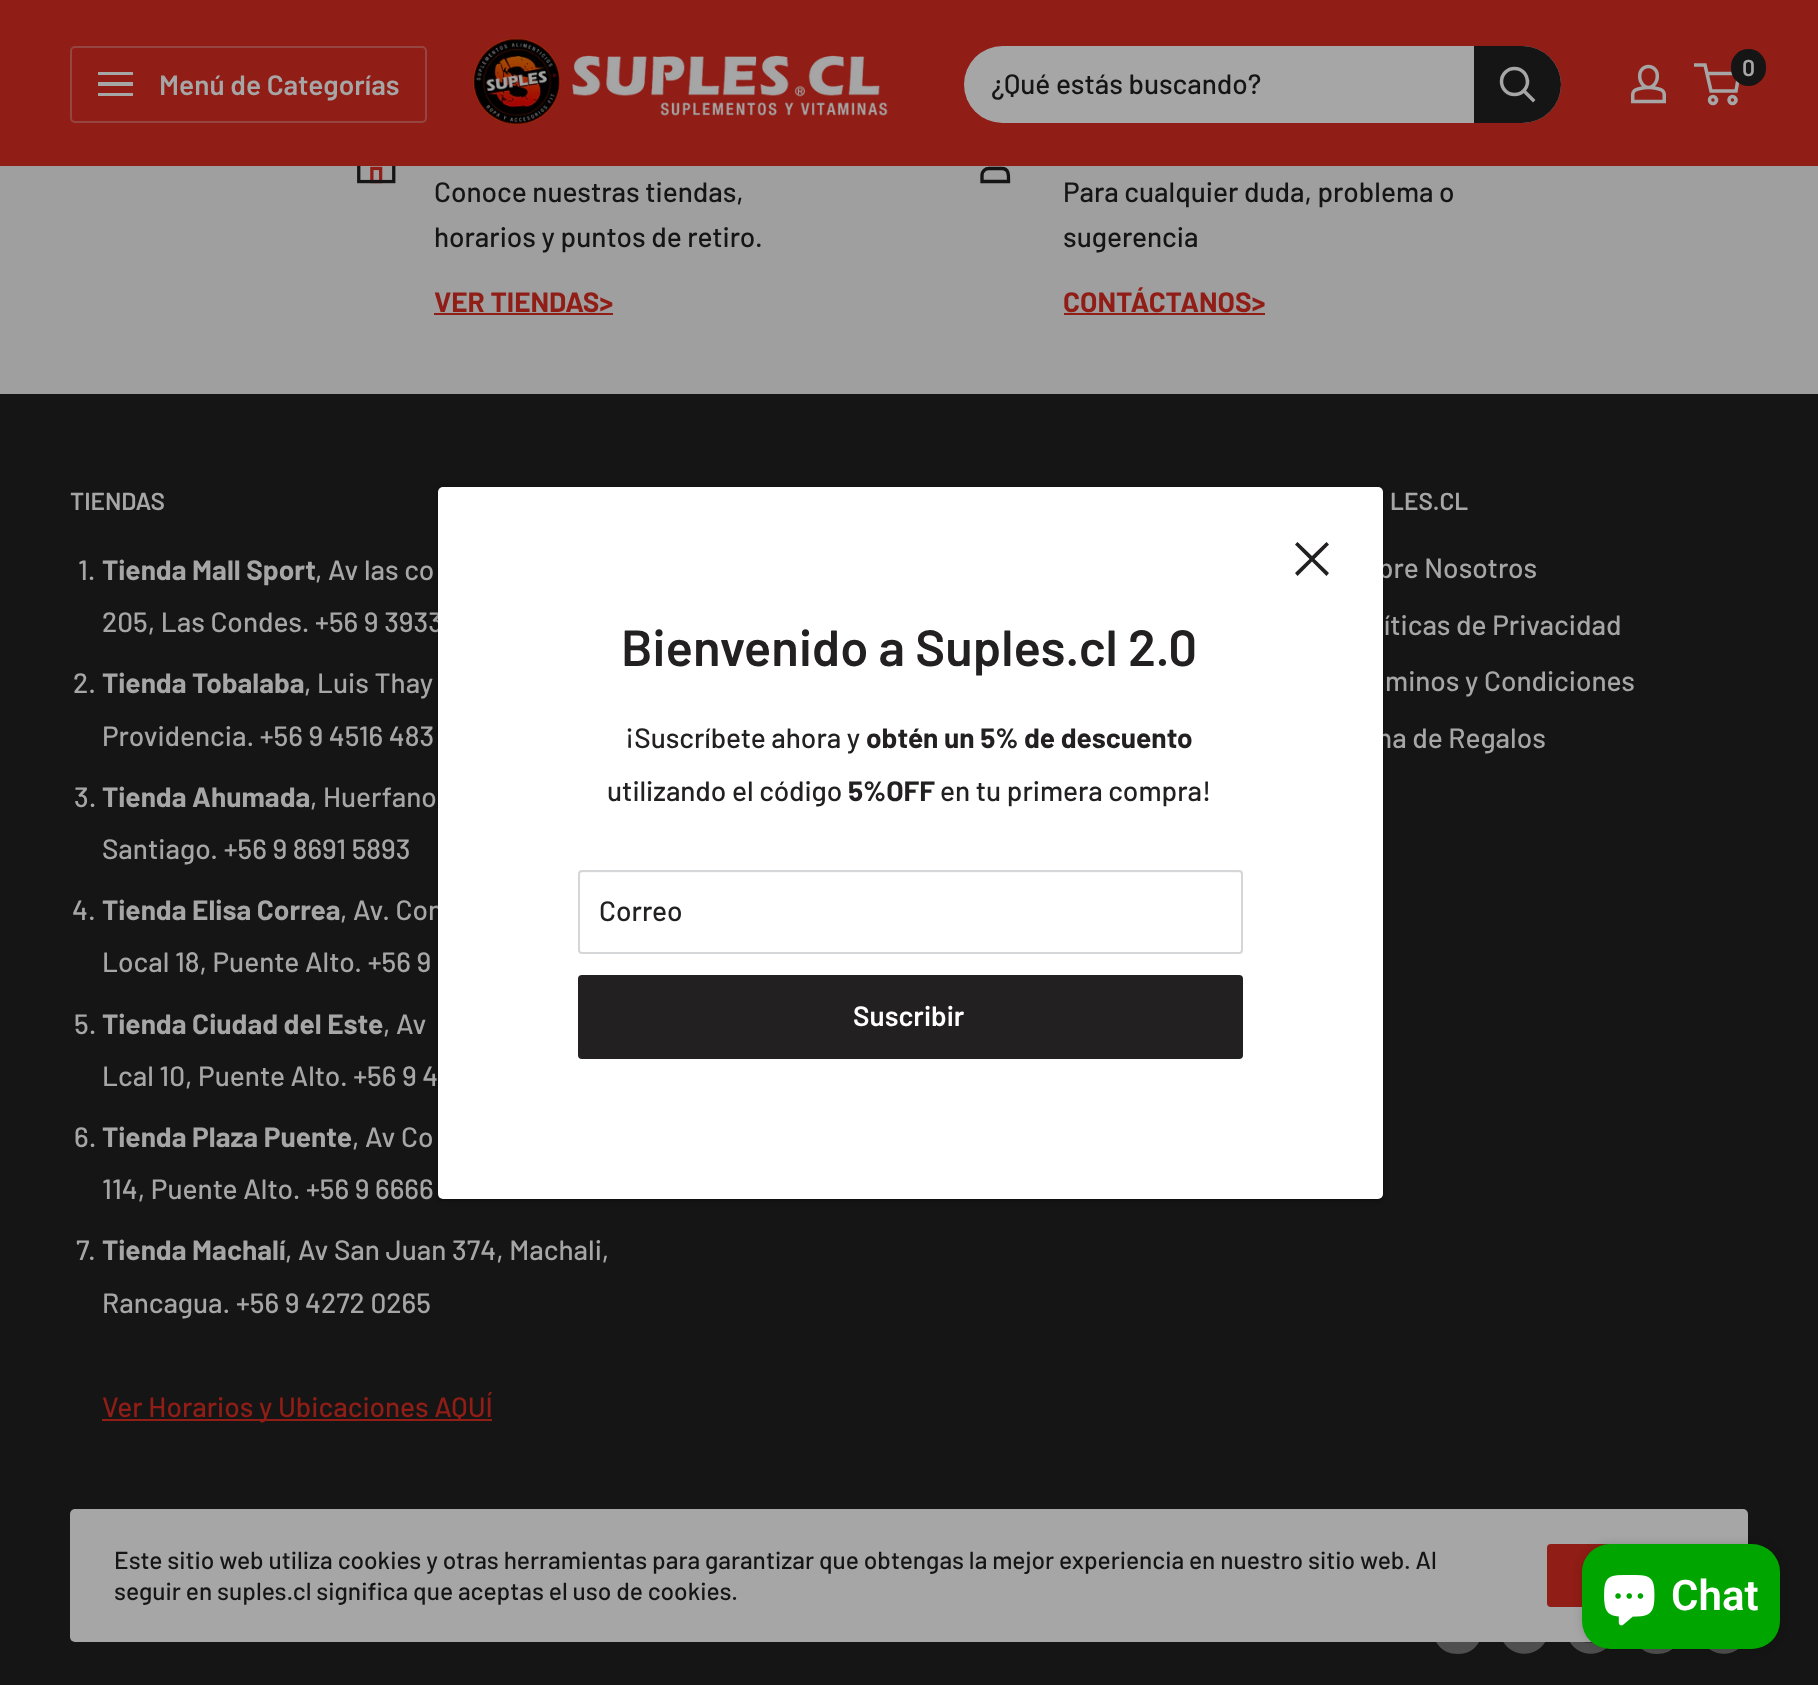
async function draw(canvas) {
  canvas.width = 1818
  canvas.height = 1685
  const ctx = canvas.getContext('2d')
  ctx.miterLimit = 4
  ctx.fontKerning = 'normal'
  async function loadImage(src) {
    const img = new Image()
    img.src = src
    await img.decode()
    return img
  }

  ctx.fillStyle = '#9f9f9f'
  ctx.fillRect(0, 0, 1818, 1685)
  ctx.beginPath()
  ctx.moveTo(1002, 168.5)
  ctx.lineTo(989, 168.5)
  ctx.bezierCurveTo(985, 168.5, 982, 171.5, 982, 175)
  ctx.lineTo(982, 181.5)
  ctx.lineTo(1008.5, 181.5)
  ctx.bezierCurveTo(1008.5, 176.5, 1009.5, 168.5, 1002, 168.5)
  ctx.closePath()
  ctx.moveTo(995.5, 162)
  ctx.bezierCurveTo(986.5, 162, 986.5, 146.5, 995.5, 146.5)
  ctx.bezierCurveTo(1004, 146.5, 1004, 162, 995.5, 162)
  ctx.closePath()
  ctx.strokeStyle = '#161515'
  ctx.lineWidth = 3.3
  ctx.lineCap = 'square'
  ctx.stroke()
  ctx.fillStyle = '#901d16'
  ctx.fillRect(0, 0, 1818, 166)
  ctx.drawImage(await loadImage('image0.png'), 472, 38, 416, 87)
  ctx.drawImage(await loadImage('image1.png'), 1631, 64, 35, 40)
  ctx.beginPath()
  ctx.arc(1713, 100, 3.5, 0, 2 * Math.PI)
  ctx.strokeStyle = '#a6a6a6'
  ctx.lineWidth = 3.5
  ctx.stroke()
  ctx.beginPath()
  ctx.arc(1732.5, 100, 3.5, 0, 2 * Math.PI)
  ctx.stroke()
  ctx.beginPath()
  ctx.moveTo(1707, 73.5)
  ctx.lineTo(1739, 73.5)
  ctx.lineTo(1736, 91)
  ctx.lineTo(1711, 91)
  ctx.lineTo(1705, 65)
  ctx.lineTo(1694, 65)
  ctx.lineCap = 'butt'
  ctx.stroke()
  ctx.fillStyle = '#161515'
  ctx.beginPath()
  ctx.roundRect(1731, 49, 35, 37, 17.5)
  ctx.fill()
  ctx.font = '600 23px Barlow'
  ctx.fillStyle = '#a6a6a6'
  ctx.fillText('0', 1742, 76)
  ctx.beginPath()
  ctx.roundRect(71, 47, 355, 75, 4)
  ctx.strokeStyle = '#964641'
  ctx.lineWidth = 2
  ctx.stroke()
  ctx.beginPath()
  ctx.moveTo(98, 93)
  ctx.lineTo(133, 93)
  ctx.lineTo(133, 96)
  ctx.lineTo(98, 96)
  ctx.closePath()
  ctx.moveTo(98, 72)
  ctx.lineTo(133, 72)
  ctx.lineTo(133, 75)
  ctx.lineTo(98, 75)
  ctx.closePath()
  ctx.moveTo(98, 82)
  ctx.lineTo(133, 82)
  ctx.lineTo(133, 86)
  ctx.lineTo(98, 86)
  ctx.closePath()
  ctx.fill('evenodd')
  ctx.font = '600 28px Barlow'
  ctx.fillText('Menú de Categorías', 159, 95)
  ctx.beginPath()
  ctx.roundRect(964, 46, 597, 77, 38.5)
  ctx.fill()
  ctx.font = '500 28px Barlow'
  ctx.fillStyle = '#161515'
  ctx.fillText('¿Qué estás buscando?', 991, 94)
  ctx.beginPath()
  ctx.roundRect(1474, 46, 87, 77, [0, 38.5, 38.5, 0])
  ctx.fill()
  ctx.beginPath()
  ctx.moveTo(1533, 100)
  ctx.lineTo(1524, 91)
  ctx.strokeStyle = '#a6a6a6'
  ctx.lineWidth = 3.5
  ctx.lineCap = 'square'
  ctx.stroke()
  ctx.beginPath()
  ctx.arc(1514.5, 81.5, 13, 0, 2 * Math.PI)
  ctx.stroke()
  ctx.drawImage(await loadImage('image2.png'), 357, 166, 39, 18)
  ctx.fillText('Conoce nuestras tiendas,', 434, 202)
  ctx.fillText('horarios y puntos de retiro.', 434, 247)
  ctx.font = 'bold 28px Barlow'
  ctx.fillStyle = '#901d16'
  ctx.fillText('VER TIENDAS>', 434, 312)
  ctx.fillRect(434, 313, 179, 2)
  ctx.font = '500 28px Barlow'
  ctx.fillStyle = '#161515'
  ctx.fillText('Para cualquier duda, problema o', 1063, 202)
  ctx.fillText('sugerencia', 1063, 247)
  ctx.font = 'bold 28px Barlow'
  ctx.fillStyle = '#901d16'
  ctx.fillText('CONTÁCTANOS>', 1063, 312)
  ctx.fillRect(1064, 313, 201, 2)
  ctx.fillStyle = '#161515'
  ctx.fillRect(0, 394, 1818, 1291)
  ctx.font = '600 24.5px Barlow'
  ctx.fillStyle = '#a6a6a6'
  ctx.fillText('TIENDAS', 70, 510)
  ctx.font = '500 28px Barlow'
  ctx.fillText('1.', 78, 580)
  ctx.font = 'bold 28px Barlow'
  ctx.fillText('Tienda Mall Sport', 102, 580)
  ctx.font = '500 28px Barlow'
  ctx.fillText(', Av las co', 315, 580)
  ctx.fillText('205, Las Condes. +56 9 3933', 102, 632)
  ctx.fillText('2.', 73, 693)
  ctx.font = 'bold 28px Barlow'
  ctx.fillText('Tienda Tobalaba', 102, 693)
  ctx.font = '500 28px Barlow'
  ctx.fillText(', Luis Thay', 304, 693)
  ctx.fillText('Providencia. +56 9 4516 483', 102, 746)
  ctx.fillText('3.', 74, 807)
  ctx.font = 'bold 28px Barlow'
  ctx.fillText('Tienda Ahumada', 102, 807)
  ctx.font = '500 28px Barlow'
  ctx.fillText(', Huerfano', 310, 807)
  ctx.fillText('Santiago. +56 9 8691 5893', 102, 859)
  ctx.fillText('4.', 72, 920)
  ctx.font = 'bold 28px Barlow'
  ctx.fillText('Tienda Elisa Correa', 102, 920)
  ctx.font = '500 28px Barlow'
  ctx.fillText(', Av. Con', 340, 920)
  ctx.fillText('Local 18, Puente Alto. +56 9', 102, 972)
  ctx.fillText('5.', 74, 1034)
  ctx.font = 'bold 28px Barlow'
  ctx.fillText('Tienda Ciudad del Este', 102, 1034)
  ctx.font = '500 28px Barlow'
  ctx.fillText(', Av', 383, 1034)
  ctx.fillText('Lcal 10, Puente Alto. +56 9 4', 102, 1086)
  ctx.fillText('6.', 74, 1147)
  ctx.font = 'bold 28px Barlow'
  ctx.fillText('Tienda Plaza Puente', 102, 1147)
  ctx.font = '500 28px Barlow'
  ctx.fillText(', Av Co', 352, 1147)
  ctx.fillText('114, Puente Alto. +56 9 6666', 102, 1199)
  ctx.fillText('7.', 76, 1260)
  ctx.font = 'bold 28px Barlow'
  ctx.fillText('Tienda Machalí', 102, 1260)
  ctx.font = '500 28px Barlow'
  ctx.fillText(', Av San Juan 374, Machali,', 285, 1260)
  ctx.fillText('Rancagua. +56 9 4272 0265', 102, 1313)
  ctx.fillStyle = '#901d16'
  ctx.fillRect(102, 1419, 390, 2)
  ctx.fillText('Ver Horarios y Ubicaciones AQUÍ', 102, 1417)
  ctx.font = '600 24.5px Barlow'
  ctx.fillStyle = '#a6a6a6'
  ctx.fillText('LES.CL', 1390, 510)
  ctx.font = '500 28px Barlow'
  ctx.fillText('bre Nosotros', 1378, 578)
  ctx.fillText('íticas de Privacidad', 1384, 635)
  ctx.fillText('minos y Condiciones', 1385, 691)
  ctx.fillText('na de Regalos', 1377, 748)
  ctx.fillStyle = '#4f4f4f'
  ctx.beginPath()
  ctx.moveTo(1458, 1654)
  ctx.bezierCurveTo(1425, 1654, 1425, 1605, 1458, 1605)
  ctx.bezierCurveTo(1490, 1605, 1490, 1654, 1458, 1654)
  ctx.closePath()
  ctx.moveTo(1463, 1626)
  ctx.lineTo(1459, 1626)
  ctx.bezierCurveTo(1459, 1622, 1459, 1621, 1463, 1621)
  ctx.lineTo(1463, 1617)
  ctx.bezierCurveTo(1455, 1617, 1454, 1618, 1454, 1626)
  ctx.lineTo(1452, 1626)
  ctx.lineTo(1453, 1629)
  ctx.lineTo(1454, 1629)
  ctx.lineTo(1454, 1641)
  ctx.lineTo(1459, 1641)
  ctx.lineTo(1459, 1629)
  ctx.lineTo(1463, 1629)
  ctx.closePath()
  ctx.fill('evenodd')
  ctx.drawImage(await loadImage('image3.png'), 1503, 1642, 42, 12)
  ctx.drawImage(await loadImage('image4.png'), 1570, 1642, 37, 12)
  ctx.beginPath()
  ctx.moveTo(1657, 1654)
  ctx.bezierCurveTo(1690, 1654, 1690, 1605, 1657, 1605)
  ctx.bezierCurveTo(1625, 1605, 1625, 1654, 1657, 1654)
  ctx.closePath()
  ctx.moveTo(1670, 1623)
  ctx.lineTo(1670, 1632)
  ctx.bezierCurveTo(1670, 1640, 1665, 1638, 1658, 1638)
  ctx.lineTo(1647, 1638)
  ctx.lineTo(1645, 1635)
  ctx.lineTo(1644, 1627)
  ctx.bezierCurveTo(1645, 1619, 1649, 1620, 1656, 1620)
  ctx.lineTo(1668, 1621)
  ctx.closePath()
  ctx.moveTo(1655, 1633)
  ctx.lineTo(1661, 1629)
  ctx.lineTo(1655, 1625)
  ctx.closePath()
  ctx.fill('evenodd')
  ctx.drawImage(await loadImage('image5.png'), 1709, 1649, 29, 5)
  ctx.fillStyle = '#a6a6a6'
  ctx.beginPath()
  ctx.roundRect(70, 1509, 1678, 133, 5)
  ctx.fill()
  ctx.font = '500 24.5px Barlow'
  ctx.fillStyle = '#161515'
  ctx.fillText('Este sitio web utiliza cookies y otras herramientas para garantizar que obtengas la mejor experiencia en nuestro sitio web. Al', 114, 1569)
  ctx.fillText('seguir en suples.cl significa que aceptas el uso de cookies.', 114, 1600)
  ctx.fillStyle = '#901d16'
  ctx.beginPath()
  ctx.roundRect(1547, 1544, 149, 63, 4)
  ctx.fill()
  ctx.fillStyle = '#0000004d'
  ctx.filter = 'blur(2px)'
  ctx.beginPath()
  ctx.roundRect(438, 488, 945, 713, 5)
  ctx.fill()
  ctx.filter = 'none'
  ctx.fillStyle = '#fff'
  ctx.beginPath()
  ctx.roundRect(438, 487, 945, 712, 5)
  ctx.fill()
  ctx.fillStyle = '#222021'
  ctx.beginPath()
  ctx.moveTo(1312, 556)
  ctx.lineTo(1326.5, 542)
  ctx.lineTo(1329, 544.5)
  ctx.lineTo(1314.5, 559)
  ctx.lineTo(1329, 573)
  ctx.lineTo(1326.5, 576)
  ctx.lineTo(1312, 561.5)
  ctx.lineTo(1297.5, 576)
  ctx.lineTo(1295, 573)
  ctx.lineTo(1309.5, 559)
  ctx.lineTo(1295, 544.5)
  ctx.lineTo(1297.5, 542)
  ctx.closePath()
  ctx.fill('evenodd')
  ctx.font = '600 50.75px Barlow'
  ctx.fillText('Bienvenido a Suples.cl 2.0', 621, 666)
  ctx.font = '500 28px Barlow'
  ctx.fillText('¡Suscríbete ahora y', 625, 748)
  ctx.font = 'bold 28px Barlow'
  ctx.fillText('obtén un 5% de descuento', 866, 748)
  ctx.font = '500 28px Barlow'
  ctx.fillText('utilizando el código', 607, 801)
  ctx.font = 'bold 28px Barlow'
  ctx.fillText('5%OFF', 848, 801)
  ctx.font = '500 28px Barlow'
  ctx.fillText('en tu primera compra!', 940, 801)
  ctx.fillStyle = '#f8f8f8'
  ctx.beginPath()
  ctx.moveTo(581, 873)
  ctx.lineTo(1239, 873)
  ctx.bezierCurveTo(1240, 873, 1241, 874, 1241, 875)
  ctx.bezierCurveTo(1241, 874, 1241, 872, 1239, 872)
  ctx.lineTo(581, 872)
  ctx.bezierCurveTo(579, 872, 579, 874, 579, 875)
  ctx.bezierCurveTo(579, 874, 580, 873, 581, 873)
  ctx.closePath()
  ctx.fill()
  ctx.beginPath()
  ctx.roundRect(579, 871, 663, 82, 3)
  ctx.strokeStyle = '#d4d6d8'
  ctx.lineWidth = 2
  ctx.stroke()
  ctx.fillStyle = '#222021'
  ctx.fillText('Correo', 599, 921)
  ctx.beginPath()
  ctx.roundRect(578, 975, 665, 84, 4)
  ctx.fill()
  ctx.font = '600 28px Barlow'
  ctx.fillStyle = '#fff'
  ctx.fillText('Suscribir', 853, 1026)
  ctx.fillStyle = '#00000026'
  ctx.filter = 'blur(4.5px)'
  ctx.beginPath()
  ctx.roundRect(1582, 1544, 198, 105, 28)
  ctx.fill()
  ctx.filter = 'none'
  ctx.fillStyle = '#00a500'
  ctx.beginPath()
  ctx.roundRect(1582, 1544, 198, 105, 28)
  ctx.fill()
  ctx.drawImage(await loadImage('image6.png'), 1604, 1575, 51, 51)
  ctx.font = '600 42px Roboto'
  ctx.fillStyle = '#fff'
  ctx.fillText('Chat', 1671, 1610)
}

draw(document.querySelector('canvas'))
